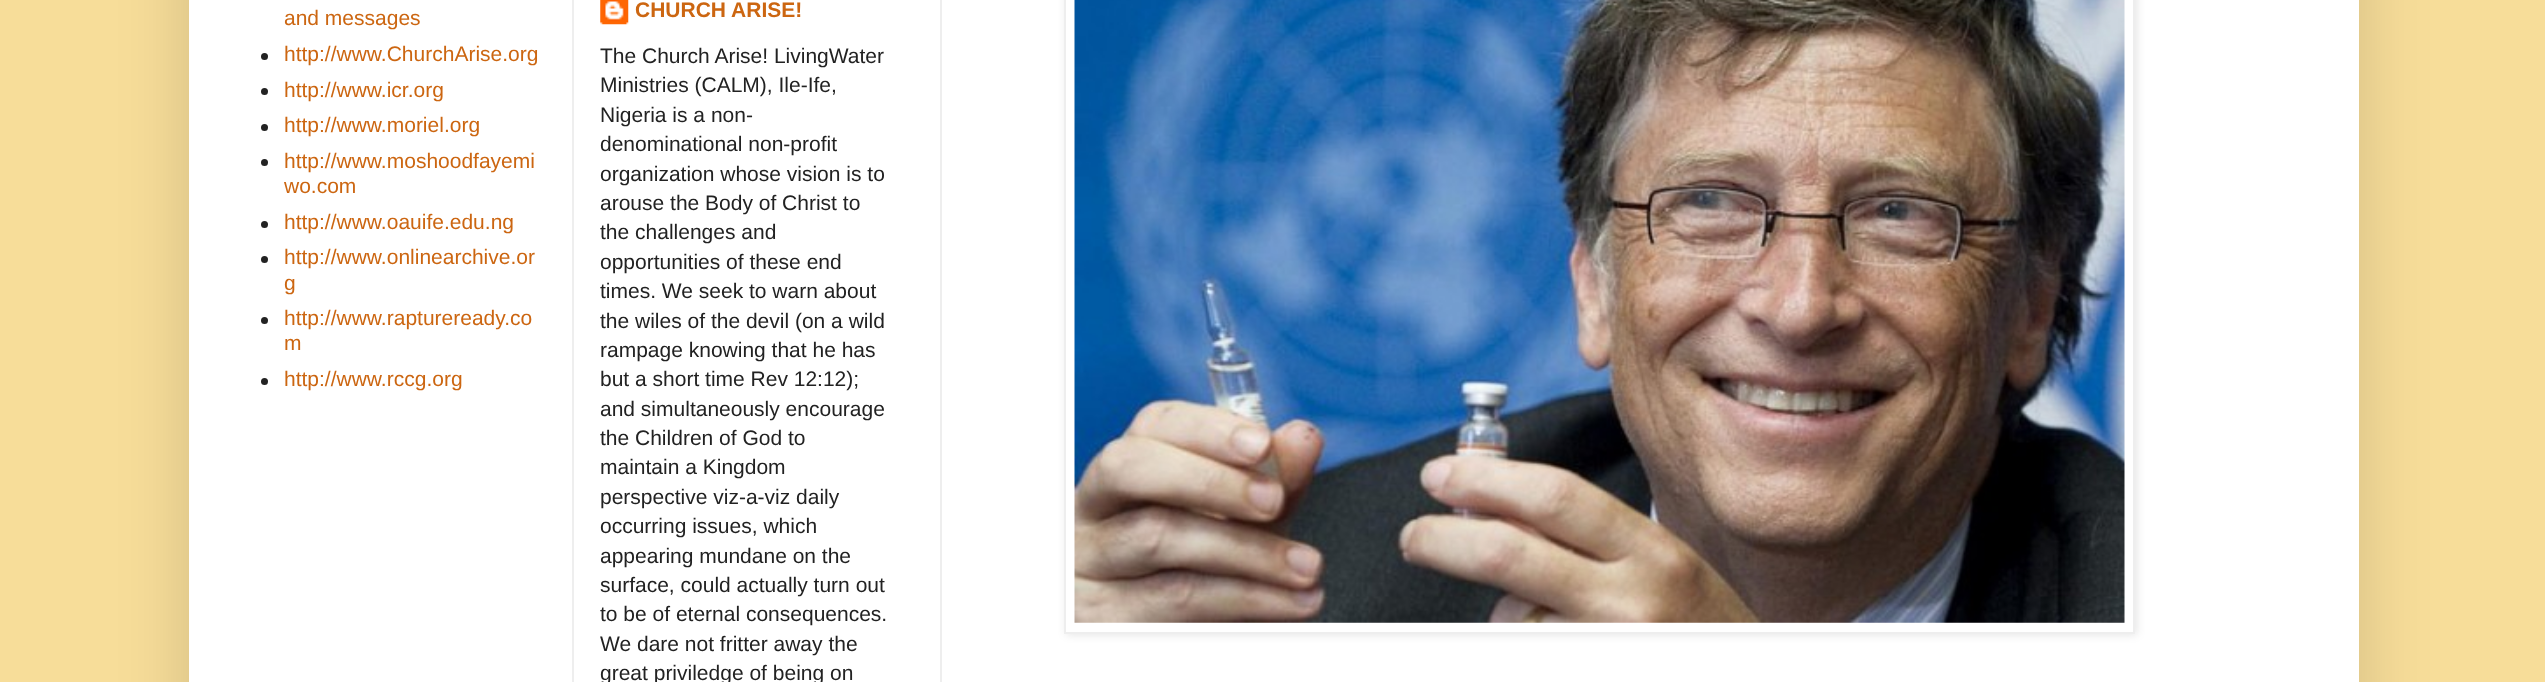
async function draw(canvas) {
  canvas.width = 2545
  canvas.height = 682
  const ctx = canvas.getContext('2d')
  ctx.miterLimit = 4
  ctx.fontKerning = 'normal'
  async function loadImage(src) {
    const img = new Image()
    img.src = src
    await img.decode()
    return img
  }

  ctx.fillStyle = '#f7dd99'
  ctx.fillRect(0, 0, 2545, 682)
  ctx.fillStyle = '#00000026'
  ctx.filter = 'blur(35px)'
  ctx.beginPath()
  ctx.rect(189, -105, 2170, 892)
  ctx.fill()
  ctx.filter = 'none'
  ctx.fillStyle = '#fff'
  ctx.fillRect(189, 0, 2170, 682)
  ctx.font = '21px Liberation Sans'
  ctx.fillStyle = '#c61'
  ctx.fillText('and messages', 284, 25)
  ctx.fillStyle = '#222'
  ctx.beginPath()
  ctx.arc(264.5, 56.5, 3.5, 0, 2 * Math.PI)
  ctx.fill()
  ctx.fillStyle = '#c61'
  ctx.fillText('http://www.ChurchArise.org', 284, 61)
  ctx.fillStyle = '#222'
  ctx.beginPath()
  ctx.arc(264.5, 91.5, 3.5, 0, 2 * Math.PI)
  ctx.fill()
  ctx.fillStyle = '#c61'
  ctx.fillText('http://www.icr.org', 284, 97)
  ctx.fillStyle = '#222'
  ctx.beginPath()
  ctx.arc(264.5, 127.5, 3.5, 0, 2 * Math.PI)
  ctx.fill()
  ctx.fillStyle = '#c61'
  ctx.fillText('http://www.moriel.org', 284, 132)
  ctx.fillStyle = '#222'
  ctx.beginPath()
  ctx.arc(264.5, 162.5, 3.5, 0, 2 * Math.PI)
  ctx.fill()
  ctx.fillStyle = '#c61'
  ctx.fillText('http://www.moshoodfayemi', 284, 168)
  ctx.fillText('wo.com', 284, 193)
  ctx.fillStyle = '#222'
  ctx.beginPath()
  ctx.arc(264.5, 224.5, 3.5, 0, 2 * Math.PI)
  ctx.fill()
  ctx.fillStyle = '#c61'
  ctx.fillText('http://www.oauife.edu.ng', 284, 229)
  ctx.fillStyle = '#222'
  ctx.beginPath()
  ctx.arc(264.5, 259.5, 3.5, 0, 2 * Math.PI)
  ctx.fill()
  ctx.fillStyle = '#c61'
  ctx.fillText('http://www.onlinearchive.or', 284, 264)
  ctx.fillText('g', 284, 290)
  ctx.fillStyle = '#222'
  ctx.beginPath()
  ctx.arc(264.5, 320.5, 3.5, 0, 2 * Math.PI)
  ctx.fill()
  ctx.fillStyle = '#c61'
  ctx.fillText('http://www.raptureready.co', 284, 325)
  ctx.fillText('m', 284, 350)
  ctx.fillStyle = '#222'
  ctx.beginPath()
  ctx.arc(264.5, 381.5, 3.5, 0, 2 * Math.PI)
  ctx.fill()
  ctx.fillStyle = '#c61'
  ctx.fillText('http://www.rccg.org', 284, 386)
  ctx.fillStyle = '#eee'
  ctx.fillRect(572, 0, 2, 682)
  ctx.drawImage(await loadImage('image0.png'), 600, 0, 29, 25)
  ctx.font = 'bold 21px Liberation Sans'
  ctx.fillStyle = '#c61'
  ctx.fillText('CHURCH ARISE!', 635, 17)
  ctx.font = '21px Liberation Sans'
  ctx.fillStyle = '#222'
  ctx.fillText('The Church Arise! LivingWater', 600, 63)
  ctx.fillText('Ministries (CALM), Ile-Ife,', 600, 92)
  ctx.fillText('Nigeria is a non-', 600, 122)
  ctx.fillText('denominational non-profit', 600, 151)
  ctx.fillText('organization whose vision is to', 600, 181)
  ctx.fillText('arouse the Body of Christ to', 600, 210)
  ctx.fillText('the challenges and', 600, 239)
  ctx.fillText('opportunities of these end', 600, 269)
  ctx.fillText('times. We seek to warn about', 600, 298)
  ctx.fillText('the wiles of the devil (on a wild', 600, 328)
  ctx.fillText('rampage knowing that he has', 600, 357)
  ctx.fillText('but a short time Rev 12:12);', 600, 386)
  ctx.fillText('and simultaneously encourage', 600, 416)
  ctx.fillText('the Children of God to', 600, 445)
  ctx.fillText('maintain a Kingdom', 600, 474)
  ctx.fillText('perspective viz-a-viz daily', 600, 504)
  ctx.fillText('occurring issues, which', 600, 533)
  ctx.fillText('appearing mundane on the', 600, 563)
  ctx.fillText('surface, could actually turn out', 600, 592)
  ctx.fillText('to be of eternal consequences.', 600, 621)
  ctx.fillText('We dare not fritter away the', 600, 651)
  ctx.fillText('great priviledge of being on', 600, 680)
  ctx.fillStyle = '#0000001a'
  ctx.filter = 'blur(4.5px)'
  ctx.beginPath()
  ctx.rect(1066, -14, 1071, 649)
  ctx.fill()
  ctx.filter = 'none'
  ctx.fillStyle = '#fff'
  ctx.beginPath()
  ctx.rect(1065, -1, 1069, 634)
  ctx.fill()
  ctx.strokeStyle = '#eee'
  ctx.lineWidth = 2
  ctx.stroke()
  ctx.drawImage(await loadImage('image1.png'), 1074, 0, 1051, 623)
  ctx.fillStyle = '#eee'
  ctx.fillRect(940, 0, 2, 682)
}

draw(document.querySelector('canvas'))
